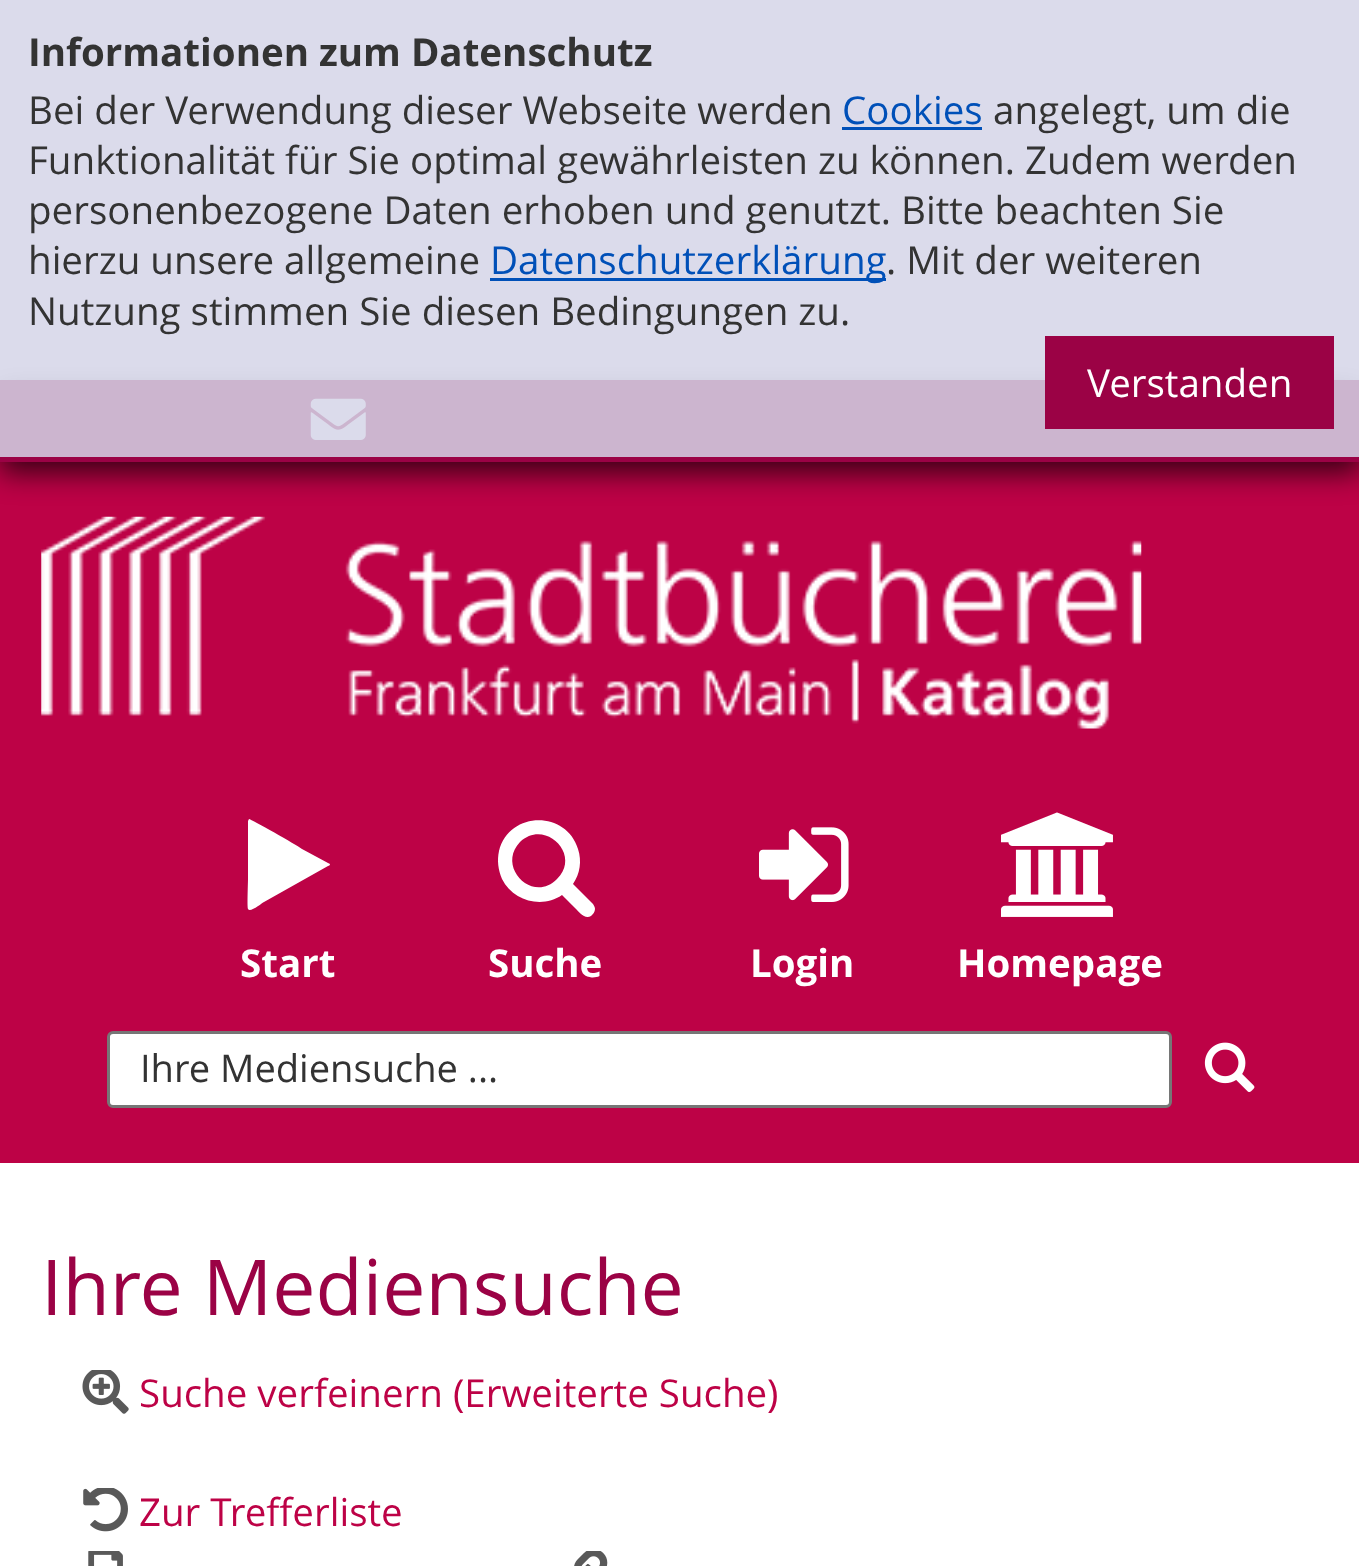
async function draw(canvas) {
  canvas.width = 1359
  canvas.height = 1566
  const ctx = canvas.getContext('2d')
  ctx.miterLimit = 4
  ctx.fontKerning = 'normal'
  async function loadImage(src) {
    const img = new Image()
    img.src = src
    await img.decode()
    return img
  }

  ctx.fillStyle = '#fff'
  ctx.fillRect(0, 0, 1359, 1566)
  ctx.fillStyle = '#bd0246'
  ctx.fillRect(0, 462, 1359, 701)
  ctx.fillStyle = '#000000b3'
  ctx.filter = 'blur(14px)'
  ctx.beginPath()
  ctx.rect(0, 391, 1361, 82)
  ctx.fill()
  ctx.filter = 'none'
  ctx.fillStyle = '#9b0245'
  ctx.fillRect(0, 380, 1359, 82)
  ctx.drawImage(await loadImage('image0.png'), 310, 398, 56, 42)
  ctx.fillStyle = '#d5d5e7d9'
  ctx.fillRect(0, 0, 1359, 457)
  ctx.font = 'bold 38.5px Open Sans'
  ctx.fillStyle = '#333'
  ctx.fillText('Informationen zum Datenschutz', 28, 66)
  ctx.font = '38.5px Open Sans'
  ctx.fillText('Bei der Verwendung dieser Webseite werden', 28, 124)
  ctx.fillStyle = '#0050b8'
  ctx.fillText('Cookies', 842, 124)
  ctx.fillRect(842, 127, 140, 3)
  ctx.fillStyle = '#333'
  ctx.fillText('angelegt, um die', 993, 124)
  ctx.fillText('Funktionalität für Sie optimal gewährleisten zu können. Zudem werden', 28, 174)
  ctx.fillText('personenbezogene Daten erhoben und genutzt. Bitte beachten Sie', 28, 224)
  ctx.fillText('hierzu unsere allgemeine', 28, 274)
  ctx.fillStyle = '#0050b8'
  ctx.fillRect(490, 278, 396, 3)
  ctx.fillText('Datenschutzerklärung', 490, 274)
  ctx.fillStyle = '#333'
  ctx.fillText('. Mit der weiteren', 886, 274)
  ctx.fillText('Nutzung stimmen Sie diesen Bedingungen zu.', 28, 325)
  ctx.fillStyle = '#9b0245'
  ctx.fillRect(1045, 336, 289, 93)
  ctx.fillStyle = '#fff'
  ctx.fillText('Verstanden', 1087, 397)
  ctx.drawImage(await loadImage('image1.png'), 41, 516, 1101, 213)
  ctx.beginPath()
  ctx.moveTo(328, 866)
  ctx.lineTo(264, 902)
  ctx.bezierCurveTo(262, 903, 250, 913, 248, 909)
  ctx.bezierCurveTo(247, 907, 248, 882, 248, 879)
  ctx.lineTo(248, 821)
  ctx.lineTo(249, 819)
  ctx.bezierCurveTo(251, 819, 297, 845, 302, 849)
  ctx.lineTo(328, 863)
  ctx.lineTo(330, 864)
  ctx.bezierCurveTo(330, 865, 329, 866, 328, 866)
  ctx.closePath()
  ctx.fill()
  ctx.font = 'bold 38.5px Open Sans'
  ctx.fillText('Start', 240, 977)
  ctx.beginPath()
  ctx.moveTo(557, 879)
  ctx.bezierCurveTo(582, 855, 545, 818, 520, 842)
  ctx.bezierCurveTo(496, 867, 533, 904, 557, 879)
  ctx.closePath()
  ctx.moveTo(595, 909)
  ctx.bezierCurveTo(595, 912, 593, 914, 591, 916)
  ctx.bezierCurveTo(585, 920, 579, 912, 575, 908)
  ctx.lineTo(562, 895)
  ctx.bezierCurveTo(542, 909, 513, 901, 502, 879)
  ctx.bezierCurveTo(498, 870, 497, 860, 499, 851)
  ctx.bezierCurveTo(509, 811, 566, 810, 578, 849)
  ctx.bezierCurveTo(582, 861, 580, 874, 573, 884)
  ctx.lineTo(593, 904)
  ctx.bezierCurveTo(594, 906, 595, 907, 595, 909)
  ctx.closePath()
  ctx.fill()
  ctx.fillText('Suche', 488, 977)
  ctx.drawImage(await loadImage('image2.png'), 759, 827, 90, 75)
  ctx.fillText('Login', 750, 977)
  ctx.drawImage(await loadImage('image3.png'), 1001, 812, 112, 105)
  ctx.fillText('Homepage', 957, 977)
  ctx.beginPath()
  ctx.roundRect(108.5, 1032.5, 1062, 74, 4.5)
  ctx.fill()
  ctx.strokeStyle = '#767676'
  ctx.lineWidth = 3
  ctx.stroke()
  ctx.font = '38.1px Open Sans'
  ctx.fillStyle = '#333'
  ctx.fillText('Ihre Mediensuche ...', 140, 1082)
  ctx.drawImage(await loadImage('image4.png'), 1204, 1042, 51, 51)
  ctx.font = '77px Open Sans'
  ctx.fillStyle = '#9b0245'
  ctx.fillText('Ihre Mediensuche', 41, 1315)
  ctx.drawImage(await loadImage('image5.png'), 82, 1370, 47, 44)
  ctx.font = '38.5px Open Sans'
  ctx.fillStyle = '#bd0246'
  ctx.fillText('Suche verfeinern (Erweiterte Suche)', 139, 1407)
  ctx.drawImage(await loadImage('image6.png'), 83, 1488, 45, 44)
  ctx.fillText('Zur Trefferliste', 139, 1526)
  ctx.drawImage(await loadImage('image7.png'), 88, 1551, 35, 15)
  ctx.drawImage(await loadImage('image8.png'), 574, 1551, 34, 15)
}

draw(document.querySelector('canvas'))
